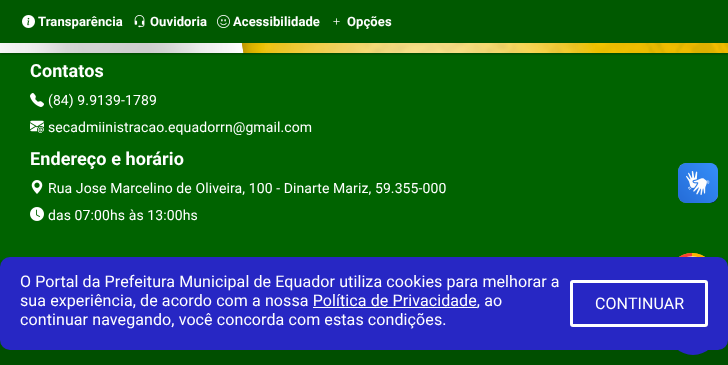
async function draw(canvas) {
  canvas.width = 728
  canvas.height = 365
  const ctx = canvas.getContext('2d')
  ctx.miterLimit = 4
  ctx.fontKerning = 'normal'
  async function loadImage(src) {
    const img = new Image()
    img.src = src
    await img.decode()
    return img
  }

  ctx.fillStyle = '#006300'
  ctx.fillRect(0, 0, 728, 365)
  ctx.fillStyle = '#0000004d'
  ctx.filter = 'blur(1px)'
  ctx.beginPath()
  ctx.rect(0, 1, 728, 53)
  ctx.fill()
  ctx.filter = 'none'
  ctx.drawImage(await loadImage('image0.png'), 0, 43, 728, 10)
  ctx.fillStyle = '#005900'
  ctx.fillRect(0, 0, 728, 43)
  ctx.drawImage(await loadImage('image1.png'), 22, 15, 13, 13)
  ctx.letterSpacing = '0.1px'
  ctx.font = 'bold 13px Roboto'
  ctx.fillStyle = '#fff'
  ctx.fillText('Transparência', 38, 26)
  ctx.drawImage(await loadImage('image2.png'), 134, 15, 11, 13)
  ctx.fillText('Ouvidoria', 150, 26)
  ctx.drawImage(await loadImage('image3.png'), 217, 15, 13, 13)
  ctx.fillText('Acessibilidade', 233, 26)
  ctx.drawImage(await loadImage('image4.png'), 333, 18, 7, 7)
  ctx.fillText('Opções', 347, 26)
  ctx.font = 'bold 18px Roboto'
  ctx.fillText('Contatos', 30, 77)
  ctx.drawImage(await loadImage('image5.png'), 30, 93, 14, 14)
  ctx.font = '14px Roboto'
  ctx.fillText('(84) 9.9139-1789', 48, 105)
  ctx.drawImage(await loadImage('image6.png'), 30, 120, 14, 13)
  ctx.fillText('secadmiinistracao.equadorrn@gmail.com', 48, 132)
  ctx.font = 'bold 18px Roboto'
  ctx.fillText('Endereço e horário', 30, 165)
  ctx.drawImage(await loadImage('image7.png'), 31, 180, 12, 14)
  ctx.font = '14px Roboto'
  ctx.fillText('Rua Jose Marcelino de Oliveira, 100 - Dinarte Mariz, 59.355-000', 48, 193)
  ctx.drawImage(await loadImage('image8.png'), 30, 207, 14, 14)
  ctx.fillText('das 07:00hs às 13:00hs', 48, 220)
  ctx.drawImage(await loadImage('image9.png'), 678, 163, 40, 40)
  ctx.drawImage(await loadImage('image10.png'), 678, 163, 40, 40)
  ctx.drawImage(await loadImage('image11.png'), 679, 253, 26, 4)
  ctx.fillStyle = '#005900'
  ctx.fillRect(0, 260, 728, 7)
  ctx.fillStyle = '#004f00'
  ctx.fillRect(0, 340, 728, 25)
  ctx.fillStyle = '#2727c4'
  ctx.beginPath()
  ctx.arc(693, 330, 25, 0, 2 * Math.PI)
  ctx.fill()
  ctx.beginPath()
  ctx.roundRect(0, 257, 728, 93, 10)
  ctx.fill()
  ctx.font = '16px Roboto'
  ctx.fillStyle = '#fff'
  ctx.fillText('O Portal da Prefeitura Municipal de Equador utiliza cookies para melhorar a', 20, 287)
  ctx.fillText('sua experiência, de acordo com a nossa Política de Privacidade, ao', 20, 306)
  ctx.fillRect(313, 307, 164, 1)
  ctx.fillText('continuar navegando, você concorda com estas condições.', 20, 325)
  ctx.beginPath()
  ctx.roundRect(571.5, 281.5, 135, 44, 1.5)
  ctx.strokeStyle = '#fff'
  ctx.lineWidth = 3
  ctx.stroke()
  ctx.fillText('CONTINUAR', 595, 309)
}

draw(document.querySelector('canvas'))
